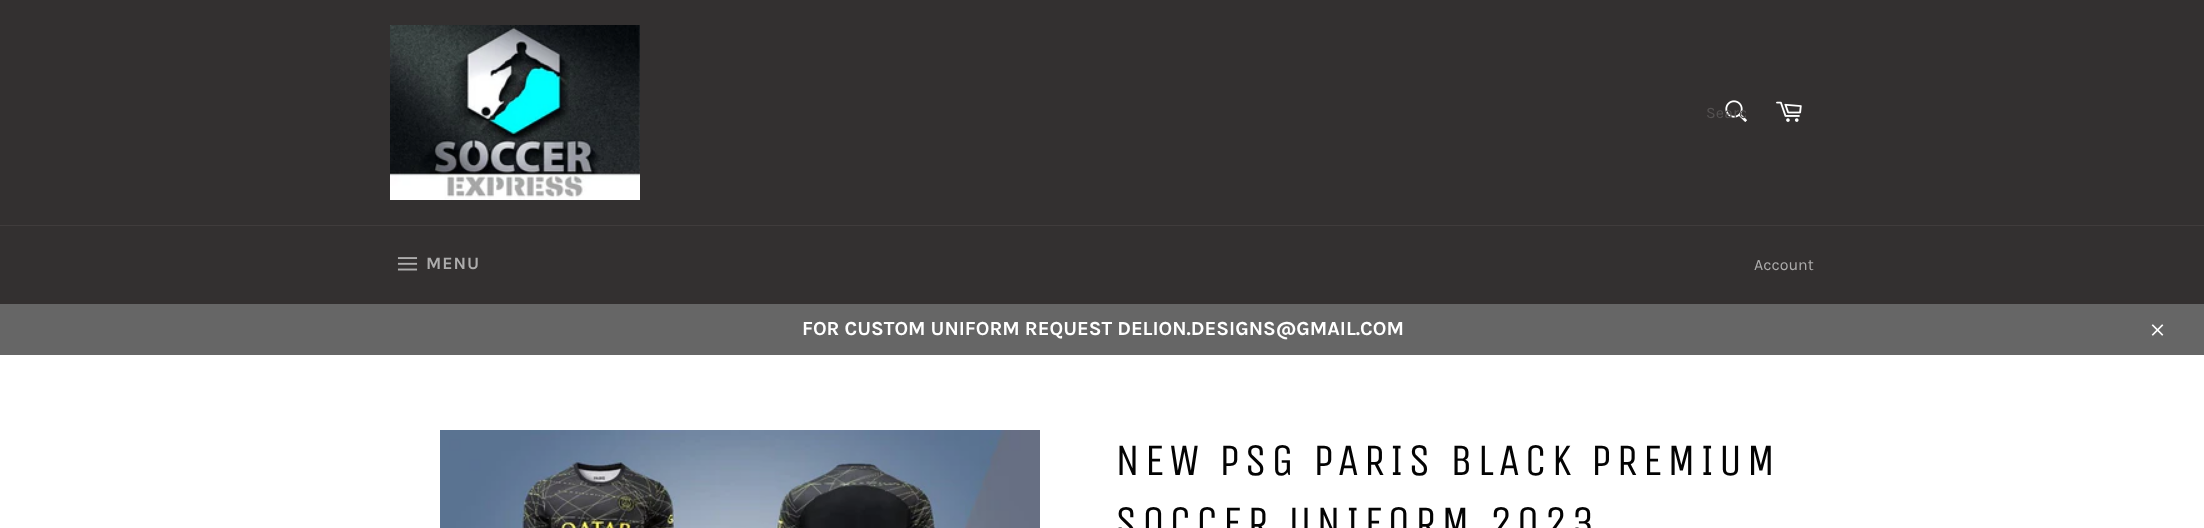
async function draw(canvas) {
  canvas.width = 2204
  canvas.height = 528
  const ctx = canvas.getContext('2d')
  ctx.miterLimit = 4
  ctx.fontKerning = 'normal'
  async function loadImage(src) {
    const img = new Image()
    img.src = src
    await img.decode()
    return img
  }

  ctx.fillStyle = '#333030'
  ctx.fillRect(0, 0, 2204, 528)
  ctx.drawImage(await loadImage('image0.png'), 390, 25, 250, 175)
  ctx.drawImage(await loadImage('image1.png'), 1725, 100, 22, 22)
  ctx.save()
  ctx.beginPath()
  ctx.rect(1706, 104, 40, 19)
  ctx.clip()
  ctx.font = '16px Karla'
  ctx.fillStyle = '#555252'
  ctx.fillText('Searc', 1706, 118)
  ctx.restore()
  ctx.drawImage(await loadImage('image2.png'), 1776, 101, 26, 21)
  ctx.fillStyle = '#403c3c'
  ctx.fillRect(0, 225, 2204, 1)
  ctx.drawImage(await loadImage('image3.png'), 397, 257, 21, 14)
  ctx.letterSpacing = '1px'
  ctx.font = 'bold 17.5px Karla'
  ctx.fillStyle = '#adacac'
  ctx.fillText('MENU', 426, 269)
  ctx.letterSpacing = '0px'
  ctx.font = '16px Karla'
  ctx.fillText('Account', 1754, 270)
  ctx.fillStyle = '#666'
  ctx.fillRect(0, 304, 2204, 51)
  ctx.font = 'bold 20px Karla'
  ctx.fillStyle = '#fff'
  ctx.fillText('FOR CUSTOM UNIFORM REQUEST DELION.DESIGNS@GMAIL.COM', 802, 335)
  ctx.drawImage(await loadImage('image4.png'), 2151, 324, 13, 12)
  ctx.fillRect(0, 355, 2204, 173)
  ctx.drawImage(await loadImage('image5.png'), 440, 430, 600, 98)
  ctx.letterSpacing = '4.5px'
  ctx.font = '45px Unica One'
  ctx.fillStyle = '#030303'
  ctx.fillText('NEW PSG PARIS BLACK PREMIUM', 1115, 475)
  ctx.fillText('SOCCER UNIFORM 2023', 1115, 537)
}

draw(document.querySelector('canvas'))
